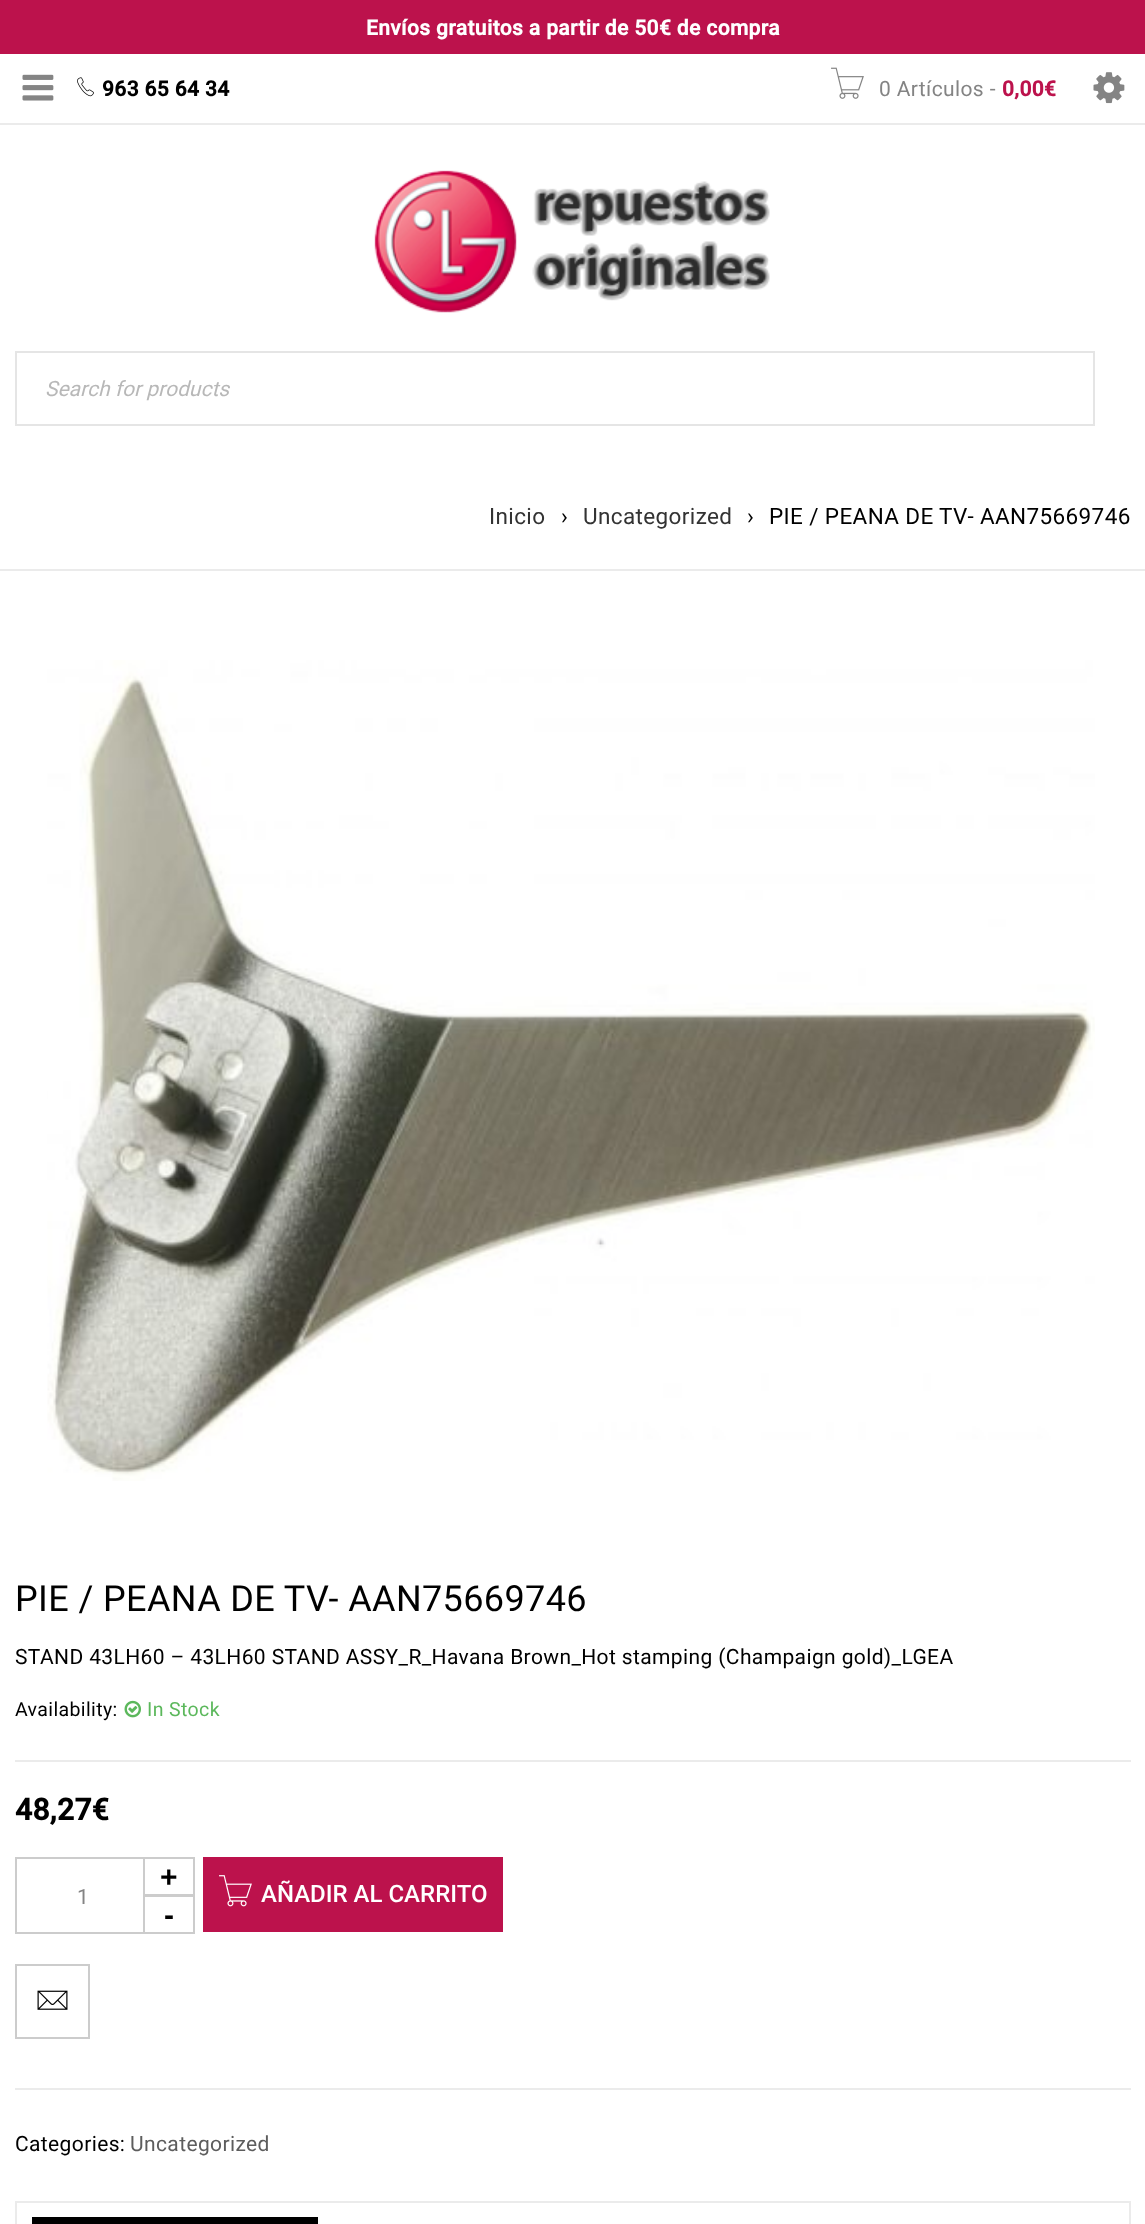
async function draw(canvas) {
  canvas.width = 1145
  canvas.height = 2224
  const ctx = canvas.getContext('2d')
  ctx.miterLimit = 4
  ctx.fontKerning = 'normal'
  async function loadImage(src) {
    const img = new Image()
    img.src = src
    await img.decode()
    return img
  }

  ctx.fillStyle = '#fff'
  ctx.fillRect(0, 0, 1145, 2224)
  ctx.fillStyle = '#bc124c'
  ctx.fillRect(0, 0, 1145, 54)
  ctx.letterSpacing = '0.38px'
  ctx.font = 'bold 21px Roboto'
  ctx.fillStyle = '#fff'
  ctx.fillText('Envíos gratuitos a partir de 50€ de compra', 366, 35)
  ctx.fillStyle = '#ebebeb'
  ctx.fillRect(0, 123, 1145, 2)
  ctx.drawImage(await loadImage('image0.png'), 22, 74, 32, 27)
  ctx.drawImage(await loadImage('image1.png'), 77, 77, 17, 20)
  ctx.fillStyle = '#000'
  ctx.fillText('963 65 64 34', 102, 96)
  ctx.drawImage(await loadImage('image2.png'), 831, 67, 33, 32)
  ctx.font = '21px Roboto'
  ctx.fillStyle = '#848484'
  ctx.fillText('0 Artículos -', 879, 96)
  ctx.font = 'bold 21px Roboto'
  ctx.fillStyle = '#bc124c'
  ctx.fillText('0,00€', 1002, 96)
  ctx.drawImage(await loadImage('image3.png'), 1093, 72, 32, 32)
  ctx.drawImage(await loadImage('image4.png'), 374, 170, 396, 143)
  ctx.strokeStyle = '#e5e5e5'
  ctx.lineWidth = 2
  ctx.strokeRect(16, 352, 1078, 73)
  ctx.letterSpacing = '0px'
  ctx.font = 'italic 21px Roboto'
  ctx.fillStyle = '#b8b8b8'
  ctx.fillText('Search for products', 45, 396)
  ctx.fillStyle = '#ebebeb'
  ctx.fillRect(0, 569, 1145, 2)
  ctx.letterSpacing = '0.38px'
  ctx.font = '22.5px Roboto'
  ctx.fillStyle = '#333'
  ctx.fillText('Inicio', 489, 524)
  ctx.fillStyle = '#000'
  ctx.fillText('›', 561, 524)
  ctx.fillStyle = '#333'
  ctx.fillText('Uncategorized', 583, 524)
  ctx.fillStyle = '#000'
  ctx.fillText('›', 747, 524)
  ctx.fillText('PIE / PEANA DE TV- AAN75669746', 769, 524)
  ctx.drawImage(await loadImage('image5.png'), 47, 660, 1048, 821)
  ctx.font = '36px Roboto'
  ctx.fillText('PIE / PEANA DE TV- AAN75669746', 15, 1611)
  ctx.font = '21px Roboto'
  ctx.fillText('STAND 43LH60 – 43LH60 STAND ASSY_R_Havana Brown_Hot stamping (Champaign gold)_LGEA', 15, 1664)
  ctx.font = '19.5px Roboto'
  ctx.fillText('Availability:', 15, 1716)
  ctx.drawImage(await loadImage('image6.png'), 124, 1700, 17, 18)
  ctx.fillStyle = '#5cb85c'
  ctx.fillText('In Stock', 147, 1716)
  ctx.fillStyle = '#ebebeb'
  ctx.fillRect(15, 1760, 1116, 2)
  ctx.font = 'bold 30px Roboto'
  ctx.fillStyle = '#000'
  ctx.fillText('48,27€', 15, 1820)
  ctx.strokeStyle = '#ccc'
  ctx.strokeRect(16, 1858, 178, 75)
  ctx.strokeRect(144, 1896, 50, 37)
  ctx.strokeRect(144, 1858, 50, 37)
  ctx.letterSpacing = '0px'
  ctx.font = 'bold 30px Liberation Sans'
  ctx.fillText('+', 160, 1887)
  ctx.font = '21px Roboto'
  ctx.fillStyle = '#848484'
  ctx.fillText('1', 77, 1904)
  ctx.font = 'bold 30px Liberation Sans'
  ctx.fillStyle = '#000'
  ctx.fillText('-', 164, 1925)
  ctx.fillStyle = '#bc124c'
  ctx.fillRect(203, 1857, 300, 75)
  ctx.drawImage(await loadImage('image7.png'), 219, 1875, 33, 32)
  ctx.font = '500 24px Roboto'
  ctx.fillStyle = '#fff'
  ctx.fillText('AÑADIR AL CARRITO', 261, 1902)
  ctx.strokeRect(16, 1965, 73, 73)
  ctx.drawImage(await loadImage('image8.png'), 37, 1990, 31, 20)
  ctx.fillStyle = '#ebebeb'
  ctx.fillRect(15, 2088, 1116, 2)
  ctx.letterSpacing = '0.38px'
  ctx.font = '21px Roboto'
  ctx.fillStyle = '#000'
  ctx.fillText('Categories:', 15, 2151)
  ctx.fillStyle = '#5d5d5d'
  ctx.fillText('Uncategorized', 130, 2151)
  ctx.strokeStyle = '#ebebeb'
  ctx.strokeRect(16, 2202, 1114, 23)
  ctx.fillStyle = '#000'
  ctx.fillRect(32, 2217, 286, 7)
}

draw(document.querySelector('canvas'))
